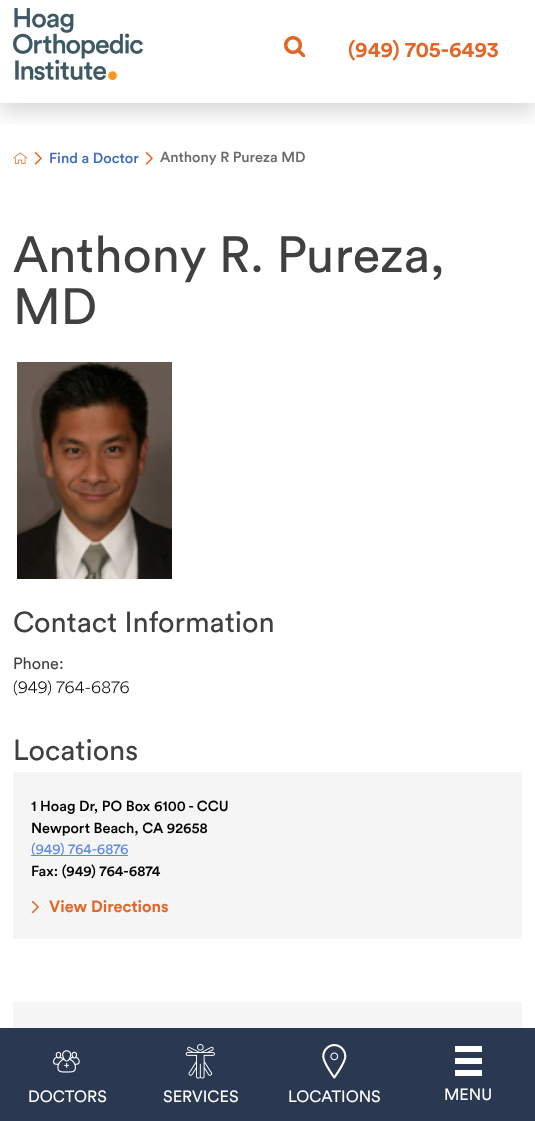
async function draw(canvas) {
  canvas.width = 535
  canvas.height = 1121
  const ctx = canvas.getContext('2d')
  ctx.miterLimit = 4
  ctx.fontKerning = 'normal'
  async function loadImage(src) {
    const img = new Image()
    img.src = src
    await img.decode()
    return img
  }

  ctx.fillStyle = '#fff'
  ctx.fillRect(0, 0, 535, 1121)
  ctx.save()
  ctx.beginPath()
  ctx.rect(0, 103, 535, 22)
  ctx.clip()
  ctx.fillStyle = '#00000029'
  ctx.filter = 'blur(11px)'
  ctx.beginPath()
  ctx.rect(0, 9, 535, 103)
  ctx.fill()
  ctx.filter = 'none'
  ctx.restore()
  ctx.drawImage(await loadImage('image0.png'), 13, 8, 130, 72)
  ctx.drawImage(await loadImage('image1.png'), 284, 36, 21, 21)
  ctx.font = 'bold 21.5px Circular'
  ctx.fillStyle = '#e26628'
  ctx.fillText('(949) 705-6493', 348, 57)
  ctx.fillStyle = '#2b3851'
  ctx.fillRect(0, 1028, 535, 93)
  ctx.drawImage(await loadImage('image2.png'), 53, 1050, 27, 23)
  ctx.font = '16.25px Circular'
  ctx.fillStyle = '#fff'
  ctx.fillText('DOCTORS', 28, 1102)
  ctx.drawImage(await loadImage('image3.png'), 185, 1044, 30, 35)
  ctx.fillText('SERVICES', 163, 1102)
  ctx.drawImage(await loadImage('image4.png'), 322, 1044, 25, 35)
  ctx.fillText('LOCATIONS', 288, 1102)
  ctx.fillRect(455, 1046, 27, 6)
  ctx.fillRect(455, 1058, 27, 6)
  ctx.fillRect(455, 1070, 27, 6)
  ctx.fillText('MENU', 444, 1100)
  ctx.drawImage(await loadImage('image5.png'), 13, 152, 15, 12)
  ctx.drawImage(await loadImage('image6.png'), 34, 152, 8, 13)
  ctx.font = '500 14.5px Circular'
  ctx.fillStyle = '#416cb9'
  ctx.fillText('Find a Doctor', 49, 163)
  ctx.drawImage(await loadImage('image6.png'), 145, 152, 8, 13)
  ctx.fillStyle = '#6b6b6b'
  ctx.fillText('Anthony R Pureza MD', 160, 162)
  ctx.font = '50.5px Circular'
  ctx.fillStyle = '#404040'
  ctx.fillText('Anthony R. Pureza,', 13, 272)
  ctx.fillText('MD', 13, 324)
  ctx.drawImage(await loadImage('image7.png'), 17, 362, 155, 217)
  ctx.font = '28.75px Circular'
  ctx.fillText('Contact Information', 13, 632)
  ctx.font = '16.25px Circular'
  ctx.fillText('Phone:', 13, 669)
  ctx.font = '300 16.25px Circular'
  ctx.fillStyle = '#000'
  ctx.fillText('(949) 764-6876', 13, 693)
  ctx.font = '28.75px Circular'
  ctx.fillStyle = '#404040'
  ctx.fillText('Locations', 13, 760)
  ctx.fillStyle = '#f5f5f5'
  ctx.fillRect(13, 772, 509, 167)
  ctx.font = '500 14.5px Circular'
  ctx.fillStyle = '#000'
  ctx.fillText('1 Hoag Dr, PO Box 6100 - CCU', 31, 811)
  ctx.fillText('Newport Beach, CA 92658', 31, 833)
  ctx.fillStyle = '#5c8adb'
  ctx.fillRect(31, 855, 97, 1)
  ctx.font = '14.5px Circular'
  ctx.fillText('(949) 764-6876', 31, 854)
  ctx.font = '500 14.5px Circular'
  ctx.fillStyle = '#000'
  ctx.fillText('Fax: (949) 764-6874', 31, 876)
  ctx.drawImage(await loadImage('image8.png'), 31, 901, 8, 12)
  ctx.font = 'bold 16.25px Circular'
  ctx.fillStyle = '#e26628'
  ctx.fillText('View Directions', 49, 912)
  ctx.fillStyle = '#f5f5f5'
  ctx.fillRect(13, 1002, 509, 26)
}

draw(document.querySelector('canvas'))
